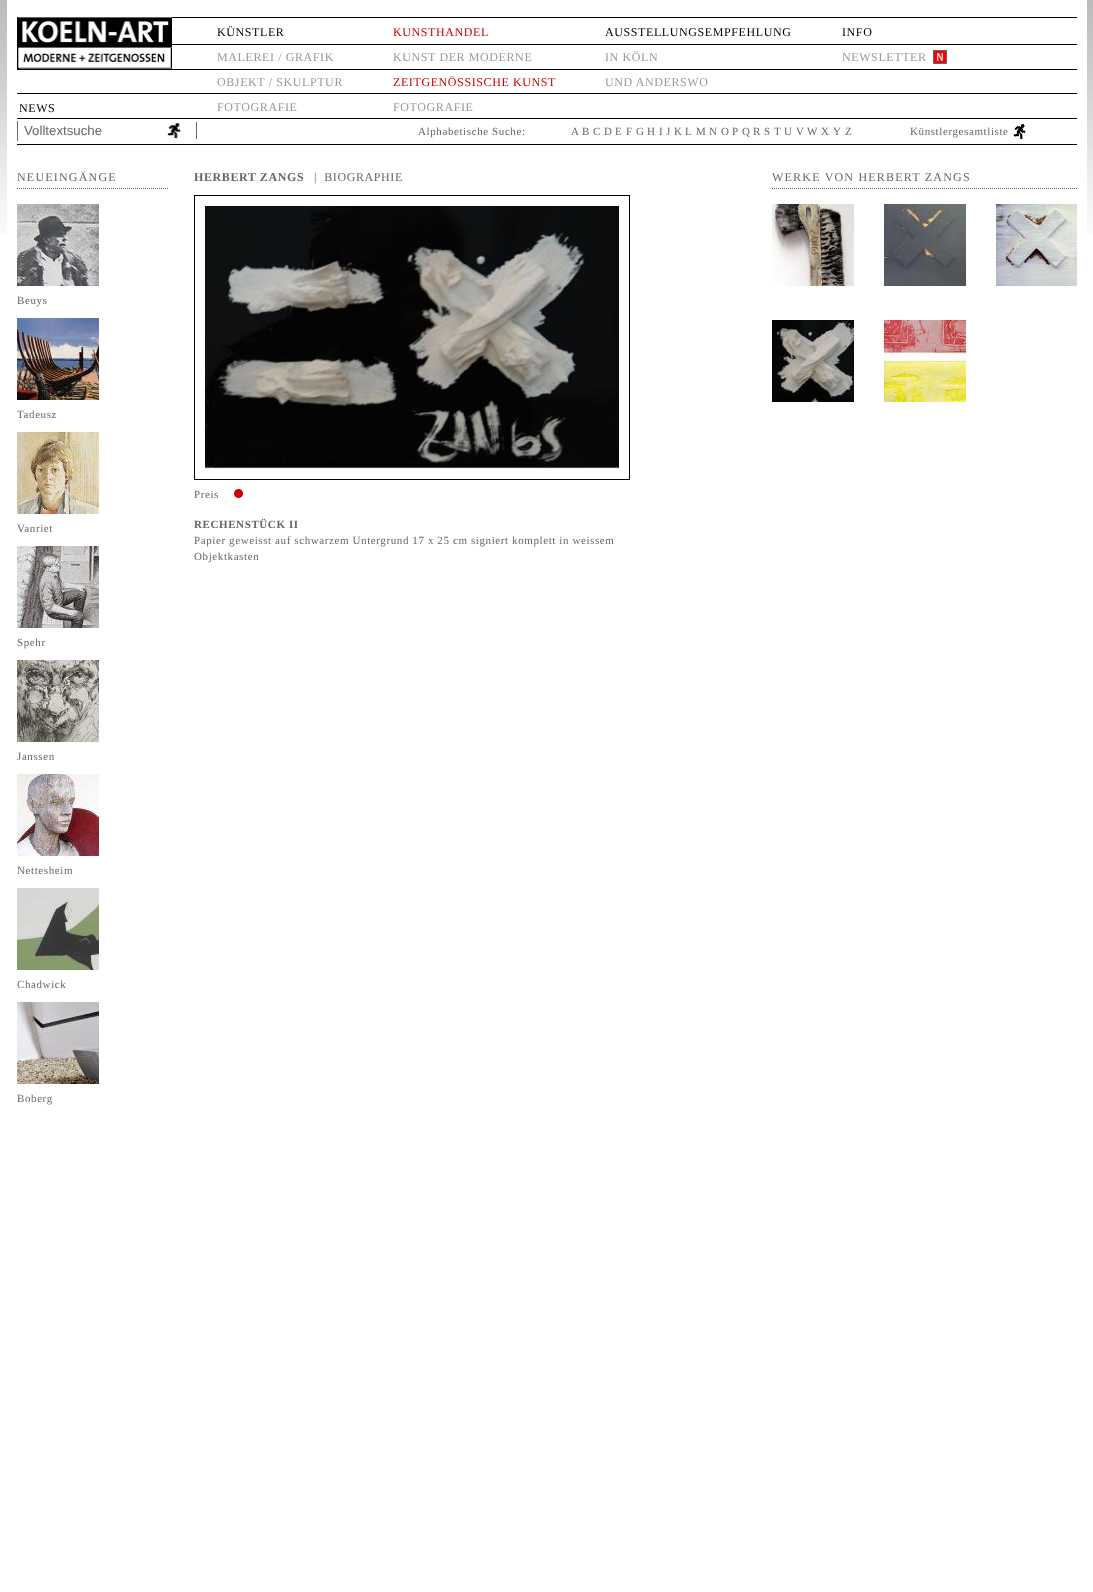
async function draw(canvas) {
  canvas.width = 1093
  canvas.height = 1592
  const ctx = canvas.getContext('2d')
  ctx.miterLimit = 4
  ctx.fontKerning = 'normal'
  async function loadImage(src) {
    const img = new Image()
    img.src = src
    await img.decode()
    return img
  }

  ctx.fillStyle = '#fff'
  ctx.fillRect(0, 0, 1093, 1592)
  ctx.drawImage(await loadImage('image0.png'), 0, 0, 1093, 234)
  ctx.fillRect(7, 0, 1080, 234)
  ctx.drawImage(await loadImage('image1.png'), 17, 17, 1060, 128)
  ctx.drawImage(await loadImage('image2.png'), 17, 17, 155, 52)
  ctx.letterSpacing = '0.6px'
  ctx.font = '12px Liberation Serif'
  ctx.fillStyle = '#000'
  ctx.fillText('KÜNSTLER', 217, 36)
  ctx.fillStyle = '#999'
  ctx.fillText('MALEREI / GRAFIK', 217, 61)
  ctx.fillText('OBJEKT / SKULPTUR', 217, 86)
  ctx.fillText('FOTOGRAFIE', 217, 111)
  ctx.fillStyle = '#c00'
  ctx.fillText('KUNSTHANDEL', 393, 36)
  ctx.fillStyle = '#999'
  ctx.fillText('KUNST DER MODERNE', 393, 61)
  ctx.fillStyle = '#c00'
  ctx.fillText('ZEITGENÖSSISCHE KUNST', 393, 86)
  ctx.fillStyle = '#999'
  ctx.fillText('FOTOGRAFIE', 393, 111)
  ctx.fillStyle = '#000'
  ctx.fillText('AUSSTELLUNGSEMPFEHLUNG', 605, 36)
  ctx.fillStyle = '#999'
  ctx.fillText('IN KÖLN', 605, 61)
  ctx.fillText('UND ANDERSWO', 605, 86)
  ctx.fillStyle = '#000'
  ctx.fillText('INFO', 842, 36)
  ctx.fillStyle = '#999'
  ctx.fillText('NEWSLETTER', 842, 61)
  ctx.drawImage(await loadImage('image3.png'), 933, 50, 14, 14)
  ctx.fillStyle = '#000'
  ctx.fillText('NEWS', 19, 112)
  ctx.fillStyle = '#666'
  ctx.fillRect(17, 121, 1, 20)
  ctx.letterSpacing = '0px'
  ctx.font = '13.25px Liberation Sans'
  ctx.fillText('Volltextsuche', 24, 135)
  ctx.drawImage(await loadImage('image4.png'), 167, 123, 14, 16)
  ctx.fillRect(196, 122, 1, 17)
  ctx.letterSpacing = '0.6px'
  ctx.font = '11px Liberation Serif'
  ctx.fillText('Alphabetische Suche:', 418, 135)
  ctx.fillText('A', 571, 135)
  ctx.fillText('B', 582, 135)
  ctx.fillText('C', 593, 135)
  ctx.fillText('D', 604, 135)
  ctx.fillText('E', 615, 135)
  ctx.fillText('F', 626, 135)
  ctx.fillText('G', 636, 135)
  ctx.fillText('H', 647, 135)
  ctx.fillText('I', 659, 135)
  ctx.fillText('J', 666, 135)
  ctx.fillText('K', 674, 135)
  ctx.fillText('L', 685, 135)
  ctx.fillText('M', 696, 135)
  ctx.fillText('N', 709, 135)
  ctx.fillText('O', 721, 135)
  ctx.fillText('P', 732, 135)
  ctx.fillText('Q', 742, 135)
  ctx.fillText('R', 753, 135)
  ctx.fillText('S', 764, 135)
  ctx.fillText('T', 774, 135)
  ctx.fillText('U', 784, 135)
  ctx.fillText('V', 796, 135)
  ctx.fillText('W', 807, 135)
  ctx.fillText('X', 821, 135)
  ctx.fillText('Y', 833, 135)
  ctx.fillText('Z', 845, 135)
  ctx.drawImage(await loadImage('image5.png'), 1013, 124, 13, 15)
  ctx.fillText('Künstlergesamtliste', 910, 135)
  ctx.beginPath()
  ctx.moveTo(17, 188.5)
  ctx.lineTo(169, 188.5)
  ctx.strokeStyle = '#666'
  ctx.setLineDash([1, 1])
  ctx.stroke()
  ctx.letterSpacing = '1.2px'
  ctx.font = '12px Liberation Serif'
  ctx.fillText('NEUEINGÄNGE', 17, 181)
  ctx.drawImage(await loadImage('image6.png'), 17, 204, 82, 82)
  ctx.letterSpacing = '0.6px'
  ctx.font = '11px Liberation Serif'
  ctx.fillText('Beuys', 17, 304)
  ctx.drawImage(await loadImage('image7.png'), 17, 318, 82, 82)
  ctx.fillText('Tadeusz', 17, 418)
  ctx.drawImage(await loadImage('image8.png'), 17, 432, 82, 82)
  ctx.fillText('Vanriet', 17, 532)
  ctx.drawImage(await loadImage('image9.png'), 17, 546, 82, 82)
  ctx.fillText('Spehr', 17, 646)
  ctx.drawImage(await loadImage('image10.png'), 17, 660, 82, 82)
  ctx.fillText('Janssen', 17, 760)
  ctx.drawImage(await loadImage('image11.png'), 17, 774, 82, 82)
  ctx.fillText('Nettesheim', 17, 874)
  ctx.drawImage(await loadImage('image12.png'), 17, 888, 82, 82)
  ctx.fillText('Chadwick', 17, 988)
  ctx.drawImage(await loadImage('image13.png'), 17, 1002, 82, 82)
  ctx.fillText('Boberg', 17, 1102)
  ctx.font = 'bold 12px Liberation Serif'
  ctx.fillText('HERBERT ZANGS', 194, 181)
  ctx.font = '12px Liberation Serif'
  ctx.fillText('|  BIOGRAPHIE', 314, 181)
  ctx.strokeStyle = '#000'
  ctx.setLineDash([])
  ctx.strokeRect(194.5, 195.5, 435, 284)
  ctx.drawImage(await loadImage('image14.png'), 205, 206, 414, 263)
  ctx.drawImage(await loadImage('image15.png'), 234, 489, 9, 9)
  ctx.font = '11px Liberation Serif'
  ctx.fillText('Preis', 194, 498)
  ctx.font = 'bold 11px Liberation Serif'
  ctx.fillText('RECHENSTÜCK II', 194, 528)
  ctx.font = '11px Liberation Serif'
  ctx.fillText('Papier geweisst auf schwarzem Untergrund 17 x 25 cm signiert komplett in weissem', 194, 544)
  ctx.fillText('Objektkasten', 194, 560)
  ctx.beginPath()
  ctx.moveTo(772, 188.5)
  ctx.lineTo(1077, 188.5)
  ctx.strokeStyle = '#666'
  ctx.setLineDash([1, 1])
  ctx.stroke()
  ctx.letterSpacing = '1.2px'
  ctx.font = '12px Liberation Serif'
  ctx.fillText('WERKE VON HERBERT ZANGS', 772, 181)
  ctx.drawImage(await loadImage('image16.png'), 772, 204, 82, 82)
  ctx.drawImage(await loadImage('image17.png'), 884, 204, 82, 82)
  ctx.drawImage(await loadImage('image18.png'), 996, 204, 81, 82)
  ctx.drawImage(await loadImage('image19.png'), 772, 320, 82, 82)
  ctx.drawImage(await loadImage('image20.png'), 884, 320, 82, 82)
}

draw(document.querySelector('canvas'))
